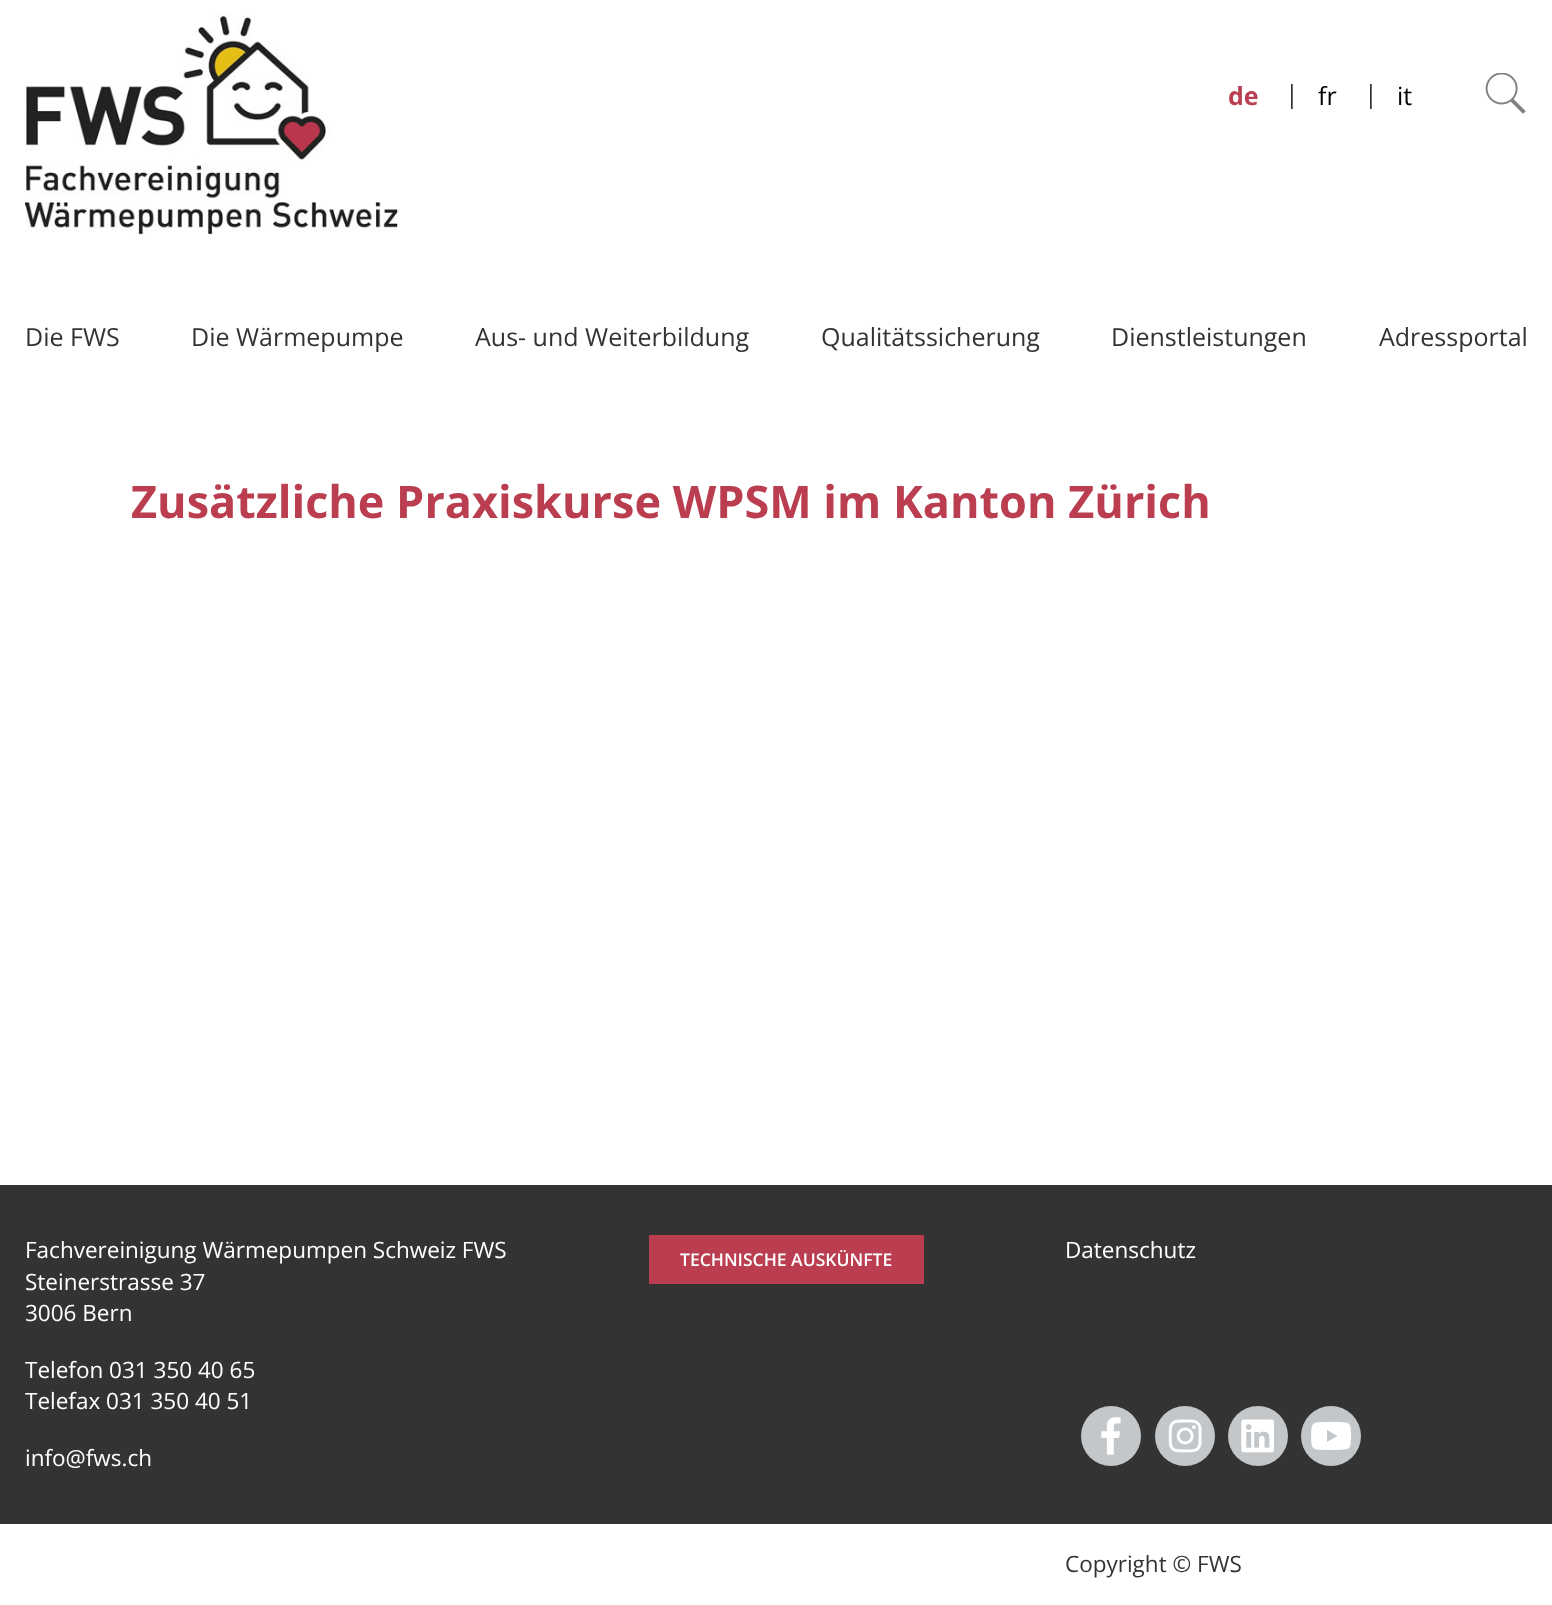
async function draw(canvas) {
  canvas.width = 1552
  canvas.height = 1605
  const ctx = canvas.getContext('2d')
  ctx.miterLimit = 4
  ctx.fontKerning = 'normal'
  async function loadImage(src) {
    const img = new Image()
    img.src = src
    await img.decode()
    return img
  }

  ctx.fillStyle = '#fff'
  ctx.fillRect(0, 0, 1552, 1605)
  ctx.drawImage(await loadImage('image0.png'), 25, 14, 374, 223)
  ctx.font = 'bold 25px Open Sans'
  ctx.fillStyle = '#ba3e50'
  ctx.fillText('de', 1228, 105)
  ctx.font = '25px Open Sans'
  ctx.fillStyle = '#333'
  ctx.fillText('|', 1285, 103)
  ctx.fillStyle = '#000'
  ctx.fillText('fr', 1318, 105)
  ctx.fillStyle = '#333'
  ctx.fillText('|', 1364, 103)
  ctx.fillStyle = '#000'
  ctx.fillText('it', 1397, 105)
  ctx.drawImage(await loadImage('image1.png'), 1485, 73, 41, 41)
  ctx.fillStyle = '#333'
  ctx.fillText('Die FWS', 25, 346)
  ctx.fillText('Die Wärmepumpe', 191, 346)
  ctx.fillText('Aus- und Weiterbildung', 475, 346)
  ctx.fillText('Qualitätssicherung', 821, 346)
  ctx.fillText('Dienstleistungen', 1111, 346)
  ctx.fillText('Adressportal', 1379, 346)
  ctx.font = 'bold 45px Open Sans'
  ctx.fillStyle = '#ba3e50'
  ctx.fillText('Zusätzliche Praxiskurse WPSM im Kanton Zürich', 131, 518)
  ctx.fillStyle = '#333'
  ctx.fillRect(0, 1185, 1552, 339)
  ctx.font = '22.5px Open Sans'
  ctx.fillStyle = '#fff'
  ctx.fillText('Fachvereinigung Wärmepumpen Schweiz FWS', 25, 1258)
  ctx.fillText('Steinerstrasse 37', 25, 1290)
  ctx.fillText('3006 Bern', 25, 1321)
  ctx.fillText('Telefon 031 350 40 65', 25, 1378)
  ctx.fillText('Telefax 031 350 40 51', 25, 1409)
  ctx.fillText('info@fws.ch', 25, 1466)
  ctx.fillStyle = '#ba3e50'
  ctx.fillRect(649, 1235, 275, 49)
  ctx.font = '600 17.5px Open Sans'
  ctx.fillStyle = '#fff'
  ctx.fillText('TECHNISCHE AUSKÜNFTE', 680, 1266)
  ctx.font = '22.5px Open Sans'
  ctx.fillText('Datenschutz', 1065, 1258)
  ctx.fillStyle = '#c3c7ca'
  ctx.beginPath()
  ctx.arc(1111, 1436, 30, 0, 2 * Math.PI)
  ctx.fill()
  ctx.drawImage(await loadImage('image2.png'), 1101, 1417, 20, 38)
  ctx.beginPath()
  ctx.arc(1185, 1436, 30, 0, 2 * Math.PI)
  ctx.fill()
  ctx.drawImage(await loadImage('image3.png'), 1168, 1419, 34, 34)
  ctx.beginPath()
  ctx.arc(1258, 1436, 30, 0, 2 * Math.PI)
  ctx.fill()
  ctx.drawImage(await loadImage('image4.png'), 1241, 1419, 33, 34)
  ctx.beginPath()
  ctx.arc(1331, 1436, 30, 0, 2 * Math.PI)
  ctx.fill()
  ctx.drawImage(await loadImage('image5.png'), 1311, 1421, 41, 29)
  ctx.fillStyle = '#333'
  ctx.fillText('Copyright © FWS', 1065, 1572)
}

draw(document.querySelector('canvas'))
